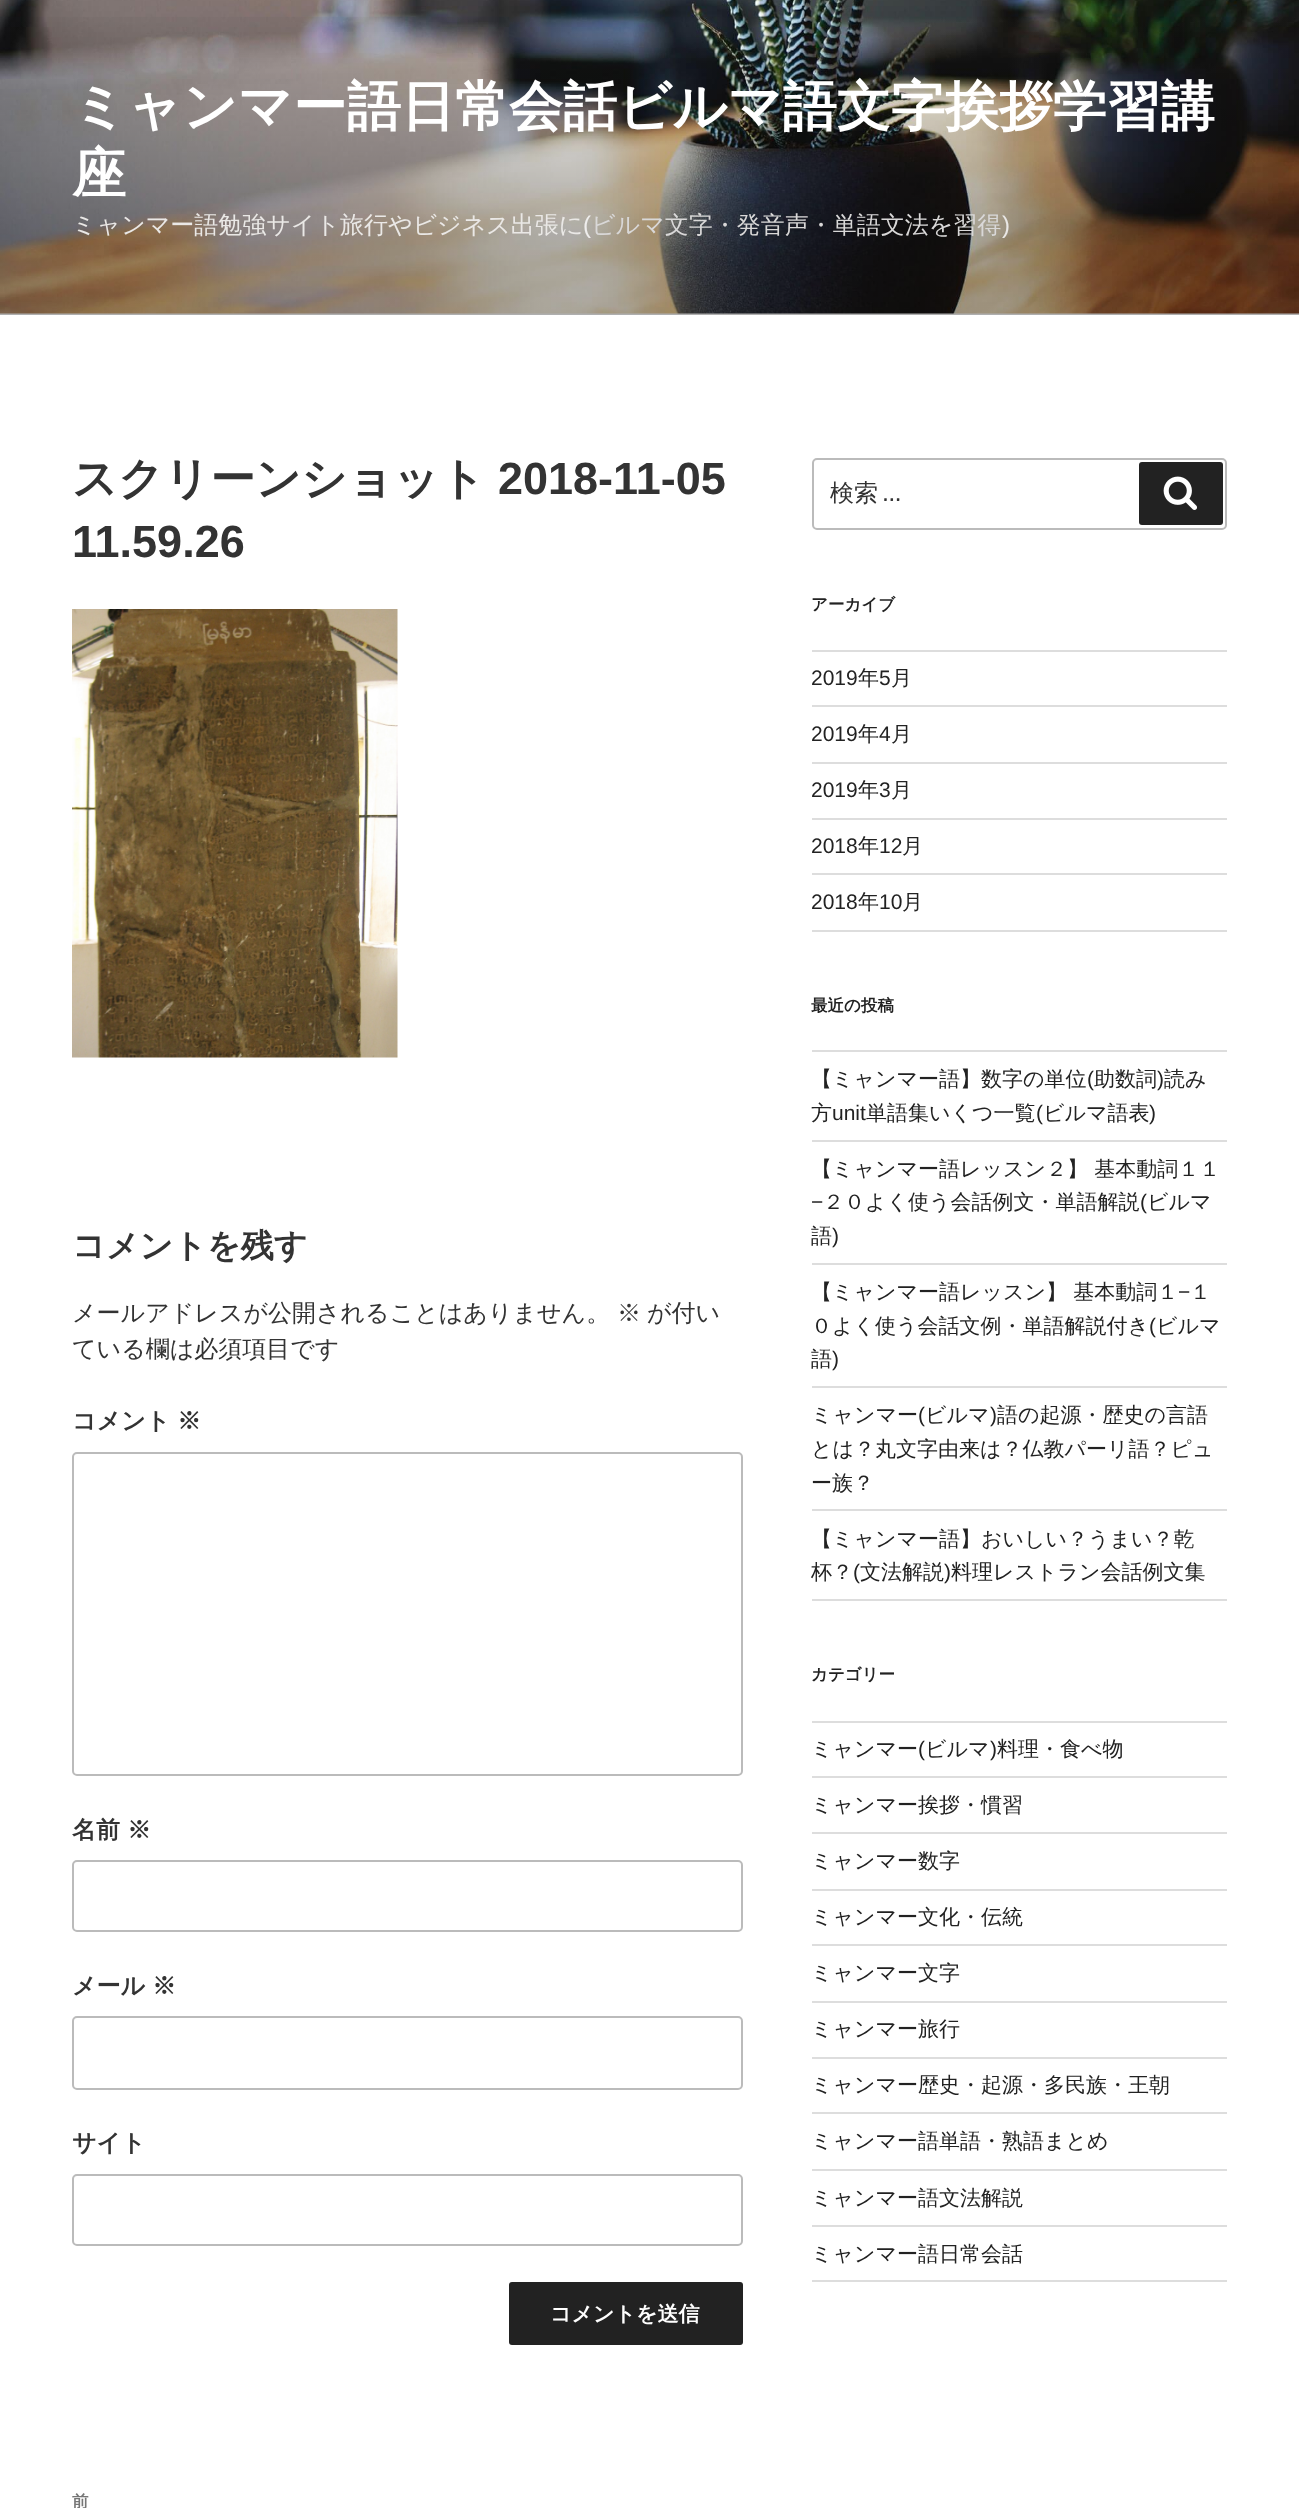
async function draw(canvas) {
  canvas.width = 1299
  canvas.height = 2508
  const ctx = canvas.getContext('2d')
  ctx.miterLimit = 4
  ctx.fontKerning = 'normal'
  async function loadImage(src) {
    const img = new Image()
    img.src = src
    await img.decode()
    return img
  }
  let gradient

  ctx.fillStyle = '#fff'
  ctx.fillRect(0, 0, 1299, 2508)
  ctx.fillStyle = '#fafafa'
  ctx.fillRect(0, 313, 1299, 2)
  ctx.drawImage(await loadImage('image0.png'), 0, 0, 1299, 314)
  gradient = ctx.createLinearGradient(650, 0, 650, 315)
  gradient.addColorStop(0, '#00000000')
  gradient.addColorStop(0.75, '#0000004d')
  gradient.addColorStop(1, '#0000004d')
  ctx.fillStyle = gradient
  ctx.fillRect(0, 17, 1299, 298)
  ctx.font = 'bold 54px WenQuanYi Zen Hei'
  ctx.fillStyle = '#fff'
  ctx.fillText('ミャンマー語日常会話ビルマ語文字挨拶学習講', 72, 125)
  ctx.fillText('座', 72, 192)
  ctx.font = '500 24px WenQuanYi Zen Hei'
  ctx.fillStyle = '#eae8e6'
  ctx.fillText('ミャンマー語勉強サイト旅行やビジネス出張に', 72, 233)
  ctx.font = '24px Liberation Sans'
  ctx.fillStyle = '#efeeed'
  ctx.fillText('(', 583, 233)
  ctx.font = '500 24px WenQuanYi Zen Hei'
  ctx.fillStyle = '#d9d8d8'
  ctx.fillText('ビルマ文字・発音声・単語文法を習得', 591, 233)
  ctx.font = '24px Liberation Sans'
  ctx.fillStyle = '#eae8e6'
  ctx.fillText(')', 1002, 233)
  ctx.font = 'bold 45px WenQuanYi Zen Hei'
  ctx.fillStyle = '#333'
  ctx.fillText('スクリーンショット', 72, 494)
  ctx.font = 'bold 45px Liberation Sans'
  ctx.fillText('2018-11-05', 498, 494)
  ctx.fillText('11.59.26', 72, 557)
  ctx.drawImage(await loadImage('image1.png'), 72, 609, 326, 449)
  ctx.font = 'bold 33px WenQuanYi Zen Hei'
  ctx.fillText('コメントを残す', 72, 1257)
  ctx.font = '500 24px WenQuanYi Zen Hei'
  ctx.fillText('メールアドレスが公開されることはありません。', 72, 1321)
  ctx.fillText('※', 617, 1321)
  ctx.fillText('が付い', 647, 1321)
  ctx.fillText('ている欄は必須項目です', 72, 1357)
  ctx.font = 'bold 24px WenQuanYi Zen Hei'
  ctx.fillText('コメント', 72, 1429)
  ctx.fillText('※', 177, 1429)
  ctx.beginPath()
  ctx.roundRect(73, 1453, 669, 322, 4)
  ctx.strokeStyle = '#bbb'
  ctx.lineWidth = 2
  ctx.stroke()
  ctx.fillText('名前', 72, 1838)
  ctx.fillText('※', 127, 1838)
  ctx.beginPath()
  ctx.roundRect(73, 1861, 669, 70, 4)
  ctx.stroke()
  ctx.fillText('メール', 72, 1994)
  ctx.fillText('※', 152, 1994)
  ctx.beginPath()
  ctx.roundRect(73, 2017, 669, 72, 4)
  ctx.stroke()
  ctx.fillText('サイト', 72, 2151)
  ctx.beginPath()
  ctx.roundRect(73, 2175, 669, 70, 4)
  ctx.stroke()
  ctx.fillStyle = '#222'
  ctx.beginPath()
  ctx.roundRect(509, 2282, 234, 63, 3)
  ctx.fill()
  ctx.font = 'bold 21px WenQuanYi Zen Hei'
  ctx.fillStyle = '#fff'
  ctx.fillText('コメントを送信', 550, 2321)
  ctx.font = 'bold 16.5px WenQuanYi Zen Hei'
  ctx.fillStyle = '#767676'
  ctx.fillText('前', 72, 2507)
  ctx.beginPath()
  ctx.roundRect(813, 459, 413, 70, 4)
  ctx.stroke()
  ctx.font = '500 24px WenQuanYi Zen Hei'
  ctx.fillStyle = '#333'
  ctx.fillText('検索', 830, 501)
  ctx.font = '24px Libre Franklin'
  ctx.fillText('…', 883, 501)
  ctx.fillStyle = '#222'
  ctx.beginPath()
  ctx.roundRect(1139, 462, 84, 63, 3)
  ctx.fill()
  ctx.drawImage(await loadImage('image2.png'), 1163, 476, 34, 34)
  ctx.font = 'bold 16.5px WenQuanYi Zen Hei'
  ctx.fillText('アーカイブ', 811, 610)
  ctx.fillStyle = '#ddd'
  ctx.fillRect(812, 650, 415, 2)
  ctx.fillRect(812, 705, 415, 2)
  ctx.font = '21px Liberation Sans'
  ctx.fillStyle = '#222'
  ctx.fillText('2019', 811, 685)
  ctx.font = '500 21px WenQuanYi Zen Hei'
  ctx.fillText('年', 858, 685)
  ctx.font = '21px Liberation Sans'
  ctx.fillText('5', 879, 685)
  ctx.font = '500 21px WenQuanYi Zen Hei'
  ctx.fillText('月', 891, 685)
  ctx.fillStyle = '#ddd'
  ctx.fillRect(812, 762, 415, 2)
  ctx.font = '21px Liberation Sans'
  ctx.fillStyle = '#222'
  ctx.fillText('2019', 811, 741)
  ctx.font = '500 21px WenQuanYi Zen Hei'
  ctx.fillText('年', 858, 741)
  ctx.font = '21px Liberation Sans'
  ctx.fillText('4', 879, 741)
  ctx.font = '500 21px WenQuanYi Zen Hei'
  ctx.fillText('月', 891, 741)
  ctx.fillStyle = '#ddd'
  ctx.fillRect(812, 818, 415, 2)
  ctx.font = '21px Liberation Sans'
  ctx.fillStyle = '#222'
  ctx.fillText('2019', 811, 797)
  ctx.font = '500 21px WenQuanYi Zen Hei'
  ctx.fillText('年', 858, 797)
  ctx.font = '21px Liberation Sans'
  ctx.fillText('3', 879, 797)
  ctx.font = '500 21px WenQuanYi Zen Hei'
  ctx.fillText('月', 891, 797)
  ctx.fillStyle = '#ddd'
  ctx.fillRect(812, 873, 415, 2)
  ctx.font = '21px Liberation Sans'
  ctx.fillStyle = '#222'
  ctx.fillText('2018', 811, 853)
  ctx.font = '500 21px WenQuanYi Zen Hei'
  ctx.fillText('年', 858, 853)
  ctx.font = '21px Liberation Sans'
  ctx.fillText('12', 879, 853)
  ctx.font = '500 21px WenQuanYi Zen Hei'
  ctx.fillText('月', 902, 853)
  ctx.fillStyle = '#ddd'
  ctx.fillRect(812, 930, 415, 2)
  ctx.font = '21px Liberation Sans'
  ctx.fillStyle = '#222'
  ctx.fillText('2018', 811, 909)
  ctx.font = '500 21px WenQuanYi Zen Hei'
  ctx.fillText('年', 858, 909)
  ctx.font = '21px Liberation Sans'
  ctx.fillText('10', 879, 909)
  ctx.font = '500 21px WenQuanYi Zen Hei'
  ctx.fillText('月', 902, 909)
  ctx.font = 'bold 16.5px WenQuanYi Zen Hei'
  ctx.fillText('最近の投稿', 811, 1011)
  ctx.fillStyle = '#ddd'
  ctx.fillRect(812, 1050, 415, 2)
  ctx.fillRect(812, 1140, 415, 2)
  ctx.font = '500 21px WenQuanYi Zen Hei'
  ctx.fillStyle = '#222'
  ctx.fillText('【ミャンマー語】数字の単位', 811, 1086)
  ctx.font = '21px Liberation Sans'
  ctx.fillText('(', 1087, 1086)
  ctx.font = '500 21px WenQuanYi Zen Hei'
  ctx.fillText('助数詞', 1094, 1086)
  ctx.font = '21px Liberation Sans'
  ctx.fillText(')', 1157, 1086)
  ctx.font = '500 21px WenQuanYi Zen Hei'
  ctx.fillText('読み', 1164, 1086)
  ctx.fillText('方', 811, 1120)
  ctx.font = '21px Liberation Sans'
  ctx.fillText('unit', 832, 1120)
  ctx.font = '500 21px WenQuanYi Zen Hei'
  ctx.fillText('単語集いくつ一覧', 866, 1120)
  ctx.font = '21px Liberation Sans'
  ctx.fillText('(', 1036, 1120)
  ctx.font = '500 21px WenQuanYi Zen Hei'
  ctx.fillText('ビルマ語表', 1043, 1120)
  ctx.font = '21px Liberation Sans'
  ctx.fillText(')', 1149, 1120)
  ctx.fillStyle = '#ddd'
  ctx.fillRect(812, 1263, 415, 2)
  ctx.font = '500 21px WenQuanYi Zen Hei'
  ctx.fillStyle = '#222'
  ctx.fillText('【ミャンマー語レッスン２】 基本動詞１１', 811, 1176)
  ctx.font = '21px Liberation Sans'
  ctx.fillText('−', 811, 1209)
  ctx.font = '500 21px WenQuanYi Zen Hei'
  ctx.fillText('２０よく使う会話例文・単語解説', 823, 1209)
  ctx.font = '21px Liberation Sans'
  ctx.fillText('(', 1140, 1209)
  ctx.font = '500 21px WenQuanYi Zen Hei'
  ctx.fillText('ビルマ', 1147, 1209)
  ctx.fillText('語', 811, 1243)
  ctx.font = '21px Liberation Sans'
  ctx.fillText(')', 832, 1243)
  ctx.fillStyle = '#ddd'
  ctx.fillRect(812, 1386, 415, 2)
  ctx.font = '500 21px WenQuanYi Zen Hei'
  ctx.fillStyle = '#222'
  ctx.fillText('【ミャンマー語レッスン】 基本動詞１', 811, 1299)
  ctx.font = '21px Liberation Sans'
  ctx.fillText('−', 1178, 1299)
  ctx.font = '500 21px WenQuanYi Zen Hei'
  ctx.fillText('１', 1190, 1299)
  ctx.fillText('０よく使う会話文例・単語解説付き', 811, 1333)
  ctx.font = '21px Liberation Sans'
  ctx.fillText('(', 1149, 1333)
  ctx.font = '500 21px WenQuanYi Zen Hei'
  ctx.fillText('ビルマ', 1156, 1333)
  ctx.fillText('語', 811, 1366)
  ctx.font = '21px Liberation Sans'
  ctx.fillText(')', 832, 1366)
  ctx.fillStyle = '#ddd'
  ctx.fillRect(812, 1509, 415, 2)
  ctx.font = '500 21px WenQuanYi Zen Hei'
  ctx.fillStyle = '#222'
  ctx.fillText('ミャンマー', 811, 1422)
  ctx.font = '21px Liberation Sans'
  ctx.fillText('(', 918, 1422)
  ctx.font = '500 21px WenQuanYi Zen Hei'
  ctx.fillText('ビルマ', 925, 1422)
  ctx.font = '21px Liberation Sans'
  ctx.fillText(')', 990, 1422)
  ctx.font = '500 21px WenQuanYi Zen Hei'
  ctx.fillText('語の起源・歴史の言語', 997, 1422)
  ctx.fillText('とは？丸文字由来は？仏教パーリ語？ピュ', 811, 1456)
  ctx.fillText('ー族？', 811, 1490)
  ctx.fillStyle = '#ddd'
  ctx.fillRect(812, 1599, 415, 2)
  ctx.fillStyle = '#222'
  ctx.fillText('【ミャンマー語】おいしい？うまい？乾', 811, 1546)
  ctx.fillText('杯？', 811, 1579)
  ctx.font = '21px Liberation Sans'
  ctx.fillText('(', 853, 1579)
  ctx.font = '500 21px WenQuanYi Zen Hei'
  ctx.fillText('文法解説', 860, 1579)
  ctx.font = '21px Liberation Sans'
  ctx.fillText(')', 944, 1579)
  ctx.font = '500 21px WenQuanYi Zen Hei'
  ctx.fillText('料理レストラン会話例文集', 951, 1579)
  ctx.font = 'bold 16.5px WenQuanYi Zen Hei'
  ctx.fillText('カテゴリー', 811, 1680)
  ctx.fillStyle = '#ddd'
  ctx.fillRect(812, 1721, 415, 2)
  ctx.fillRect(812, 1776, 415, 2)
  ctx.font = '500 21px WenQuanYi Zen Hei'
  ctx.fillStyle = '#222'
  ctx.fillText('ミャンマー', 811, 1756)
  ctx.font = '21px Liberation Sans'
  ctx.fillText('(', 918, 1756)
  ctx.font = '500 21px WenQuanYi Zen Hei'
  ctx.fillText('ビルマ', 925, 1756)
  ctx.font = '21px Liberation Sans'
  ctx.fillText(')', 990, 1756)
  ctx.font = '500 21px WenQuanYi Zen Hei'
  ctx.fillText('料理・食べ物', 997, 1756)
  ctx.fillStyle = '#ddd'
  ctx.fillRect(812, 1832, 415, 2)
  ctx.fillStyle = '#222'
  ctx.fillText('ミャンマー挨拶・慣習', 811, 1812)
  ctx.fillStyle = '#ddd'
  ctx.fillRect(812, 1889, 415, 2)
  ctx.fillStyle = '#222'
  ctx.fillText('ミャンマー数字', 811, 1868)
  ctx.fillStyle = '#ddd'
  ctx.fillRect(812, 1944, 415, 2)
  ctx.fillStyle = '#222'
  ctx.fillText('ミャンマー文化・伝統', 811, 1924)
  ctx.fillStyle = '#ddd'
  ctx.fillRect(812, 2001, 415, 2)
  ctx.fillStyle = '#222'
  ctx.fillText('ミャンマー文字', 811, 1980)
  ctx.fillStyle = '#ddd'
  ctx.fillRect(812, 2057, 415, 2)
  ctx.fillStyle = '#222'
  ctx.fillText('ミャンマー旅行', 811, 2036)
  ctx.fillStyle = '#ddd'
  ctx.fillRect(812, 2112, 415, 2)
  ctx.fillStyle = '#222'
  ctx.fillText('ミャンマー歴史・起源・多民族・王朝', 811, 2092)
  ctx.fillStyle = '#ddd'
  ctx.fillRect(812, 2169, 415, 2)
  ctx.fillStyle = '#222'
  ctx.fillText('ミャンマー語単語・熟語まとめ', 811, 2148)
  ctx.fillStyle = '#ddd'
  ctx.fillRect(812, 2225, 415, 2)
  ctx.fillStyle = '#222'
  ctx.fillText('ミャンマー語文法解説', 811, 2205)
  ctx.fillStyle = '#ddd'
  ctx.fillRect(812, 2280, 415, 2)
  ctx.fillStyle = '#222'
  ctx.fillText('ミャンマー語日常会話', 811, 2261)
}

draw(document.querySelector('canvas'))
